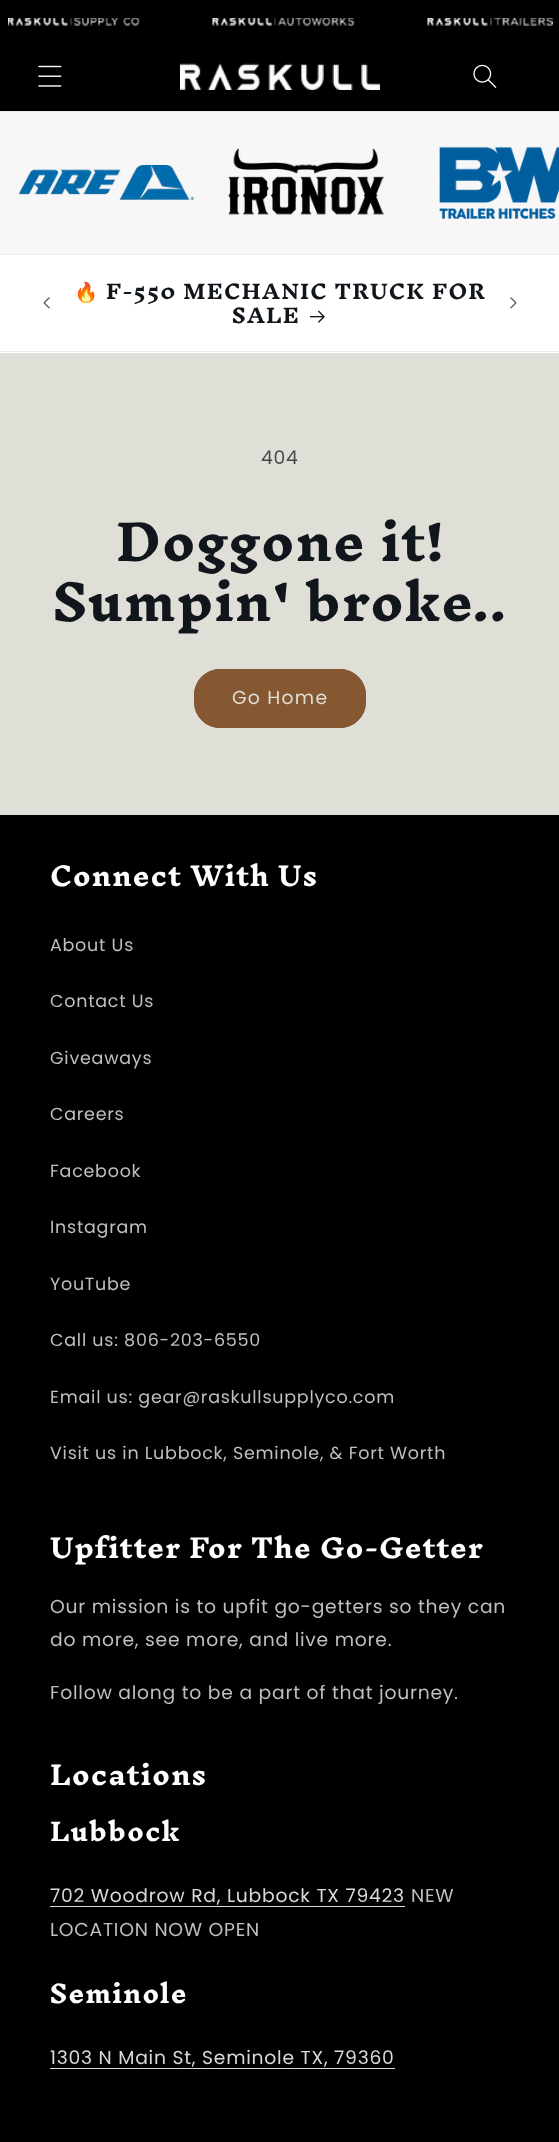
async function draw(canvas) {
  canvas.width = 559
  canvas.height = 2142
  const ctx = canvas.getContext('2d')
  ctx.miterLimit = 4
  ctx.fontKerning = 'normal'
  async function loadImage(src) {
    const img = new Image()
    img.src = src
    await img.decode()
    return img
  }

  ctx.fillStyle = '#dfdfd8'
  ctx.fillRect(0, 0, 559, 2142)
  ctx.fillStyle = '#000'
  ctx.fillRect(0, 0, 559, 111)
  ctx.drawImage(await loadImage('image0.png'), 38, 65, 24, 22)
  ctx.drawImage(await loadImage('image1.png'), 180, 63, 200, 27)
  ctx.drawImage(await loadImage('image2.png'), 473, 64, 24, 24)
  ctx.drawImage(await loadImage('image3.png'), 8, 18, 132, 8)
  ctx.drawImage(await loadImage('image4.png'), 212, 18, 143, 8)
  ctx.drawImage(await loadImage('image5.png'), 427, 18, 126, 8)
  ctx.fillStyle = '#f7f7f7'
  ctx.fillRect(0, 112, 559, 142)
  ctx.fillStyle = '#ebebeb'
  ctx.fillRect(0, 111, 559, 1)
  ctx.fillRect(0, 254, 559, 1)
  ctx.drawImage(await loadImage('image6.png'), 18, 165, 176, 35)
  ctx.drawImage(await loadImage('image7.png'), 228, 148, 157, 67)
  ctx.drawImage(await loadImage('image8.png'), 439, 146, 120, 73)
  ctx.fillStyle = '#fff'
  ctx.fillRect(0, 255, 559, 98)
  ctx.fillStyle = '#ececed'
  ctx.fillRect(0, 351, 559, 1)
  ctx.drawImage(await loadImage('image9.png'), 43, 297, 7, 12)
  ctx.save()
  ctx.beginPath()
  ctx.rect(74, 255, 412, 96)
  ctx.clip()
  ctx.letterSpacing = '1.25px'
  ctx.font = 'bold 19.5px Noto Color Emoji'
  ctx.fillStyle = '#11151c'
  ctx.fillText('🔥', 74, 299)
  ctx.restore()
  ctx.letterSpacing = '1.25px'
  ctx.font = 'bold 19.5px Inknut Antiqua'
  ctx.fillStyle = '#11151c'
  ctx.fillText('F-550 MECHANIC TRUCK FOR', 106, 299)
  ctx.fillText('SALE', 232, 323)
  ctx.drawImage(await loadImage('image10.png'), 310, 310, 15, 13)
  ctx.drawImage(await loadImage('image11.png'), 510, 297, 7, 12)
  ctx.letterSpacing = '0.75px'
  ctx.font = '18.75px Poppins'
  ctx.fillStyle = '#45484b'
  ctx.fillText('404', 261, 464)
  ctx.letterSpacing = '1px'
  ctx.font = 'bold 48.75px Inknut Antiqua'
  ctx.fillStyle = '#11151c'
  ctx.fillText('Doggone it!', 116, 561)
  ctx.fillText('Sumpin\' broke..', 53, 621)
  ctx.fillStyle = '#855832'
  ctx.beginPath()
  ctx.roundRect(194, 669, 172, 59, 26)
  ctx.fill()
  ctx.beginPath()
  ctx.roundRect(194.5, 669.5, 171, 58, 25.5)
  ctx.strokeStyle = '#855832'
  ctx.stroke()
  ctx.letterSpacing = '1.25px'
  ctx.font = '18.75px Poppins'
  ctx.fillStyle = '#dfdfd8'
  ctx.fillText('Go Home', 232, 704)
  ctx.fillStyle = '#000'
  ctx.fillRect(0, 815, 559, 1327)
  ctx.letterSpacing = '1px'
  ctx.font = 'bold 26px Inknut Antiqua'
  ctx.fillStyle = '#fff'
  ctx.fillText('Connect With Us', 50, 886)
  ctx.letterSpacing = '0.75px'
  ctx.font = '17.5px Poppins'
  ctx.fillStyle = '#bfbfbf'
  ctx.fillText('About Us', 50, 951)
  ctx.fillText('Contact Us', 50, 1007)
  ctx.fillText('Giveaways', 50, 1064)
  ctx.fillText('Careers', 50, 1120)
  ctx.fillText('Facebook', 50, 1177)
  ctx.fillText('Instagram', 50, 1233)
  ctx.fillText('YouTube', 50, 1290)
  ctx.fillText('Call us: 806-203-6550', 50, 1346)
  ctx.fillText('Email us: gear@raskullsupplyco.com', 50, 1403)
  ctx.fillText('Visit us in Lubbock, Seminole, & Fort Worth', 50, 1459)
  ctx.letterSpacing = '1px'
  ctx.font = 'bold 26px Inknut Antiqua'
  ctx.fillStyle = '#fff'
  ctx.fillText('Upfitter For The Go-Getter', 50, 1558)
  ctx.letterSpacing = '0.75px'
  ctx.font = '18.75px Poppins'
  ctx.fillStyle = '#bfbfbf'
  ctx.fillText('Our mission is to upfit go-getters so they can', 50, 1613)
  ctx.fillText('do more, see more, and live more.', 50, 1646)
  ctx.fillText('Follow along to be a part of that journey.', 50, 1699)
  ctx.letterSpacing = '1px'
  ctx.font = 'bold 26px Inknut Antiqua'
  ctx.fillStyle = '#fff'
  ctx.fillText('Locations', 50, 1785)
  ctx.font = 'bold 24.5px Inknut Antiqua'
  ctx.fillText('Lubbock', 50, 1841)
  ctx.letterSpacing = '0.75px'
  ctx.font = '18.75px Poppins'
  ctx.fillStyle = '#d9d9d9'
  ctx.fillText('702 Woodrow Rd, Lubbock TX 79423', 50, 1902)
  ctx.fillRect(50, 1906, 355, 1)
  ctx.fillStyle = '#bfbfbf'
  ctx.fillText('NEW', 411, 1902)
  ctx.fillText('LOCATION NOW OPEN', 50, 1936)
  ctx.letterSpacing = '1px'
  ctx.font = 'bold 24.5px Inknut Antiqua'
  ctx.fillStyle = '#fff'
  ctx.fillText('Seminole', 50, 2003)
  ctx.letterSpacing = '0.75px'
  ctx.font = '18.75px Poppins'
  ctx.fillStyle = '#d9d9d9'
  ctx.fillText('1303 N Main St, Seminole TX, 79360', 50, 2064)
  ctx.fillRect(50, 2068, 345, 1)
}

draw(document.querySelector('canvas'))
